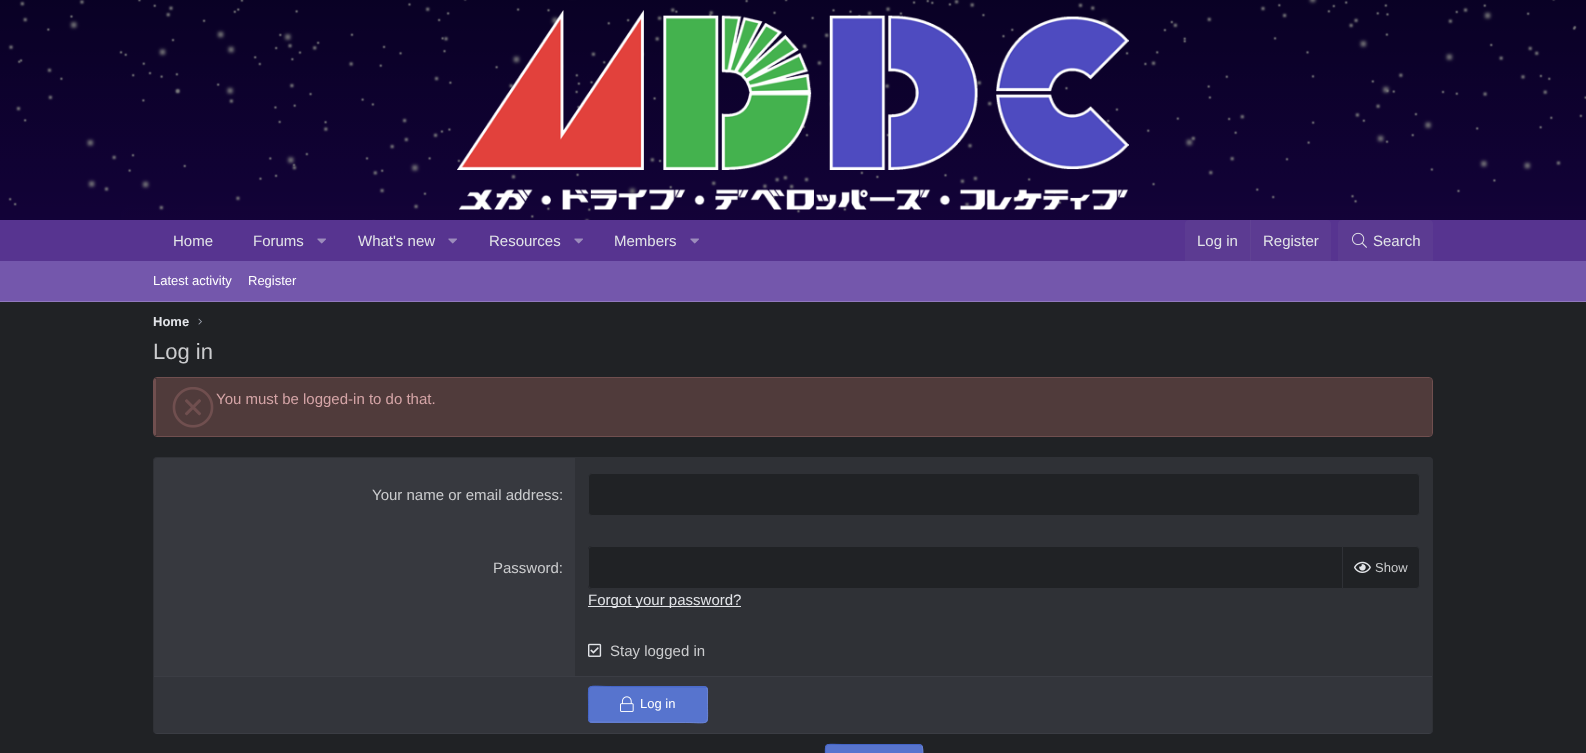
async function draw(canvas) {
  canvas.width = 1586
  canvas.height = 753
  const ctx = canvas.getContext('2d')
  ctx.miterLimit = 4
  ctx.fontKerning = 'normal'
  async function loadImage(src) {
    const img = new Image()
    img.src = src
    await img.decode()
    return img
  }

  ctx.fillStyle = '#202225'
  ctx.fillRect(0, 0, 1586, 753)
  ctx.drawImage(await loadImage('image0.png'), 0, 0, 1586, 220)
  ctx.drawImage(await loadImage('image1.png'), 457, 10, 672, 200)
  ctx.fillStyle = '#573490'
  ctx.fillRect(0, 220, 1586, 41)
  ctx.font = '15px Liberation Sans'
  ctx.fillStyle = '#e2e4e8'
  ctx.fillText('Home', 173, 246)
  ctx.fillText('Forums', 253, 246)
  ctx.drawImage(await loadImage('image2.png'), 317, 238, 9, 6)
  ctx.fillText('What\'s new', 358, 246)
  ctx.drawImage(await loadImage('image2.png'), 448, 238, 9, 6)
  ctx.fillText('Resources', 489, 246)
  ctx.drawImage(await loadImage('image2.png'), 574, 238, 9, 6)
  ctx.fillText('Members', 614, 246)
  ctx.drawImage(await loadImage('image2.png'), 690, 238, 9, 6)
  ctx.fillStyle = '#5c3b92'
  ctx.beginPath()
  ctx.roundRect(1185, 220, 146, 41, [4, 4, 0, 0])
  ctx.fill()
  ctx.fillStyle = '#e2e4e8'
  ctx.fillText('Log in', 1197, 246)
  ctx.fillStyle = '#614294'
  ctx.fillRect(1250, 220, 1, 41)
  ctx.fillStyle = '#e2e4e8'
  ctx.fillText('Register', 1263, 246)
  ctx.fillStyle = '#5c3b92'
  ctx.beginPath()
  ctx.roundRect(1338, 220, 95, 41, [4, 4, 0, 0])
  ctx.fill()
  ctx.drawImage(await loadImage('image3.png'), 1352, 232, 15, 16)
  ctx.fillStyle = '#e2e4e8'
  ctx.fillText('Search', 1373, 246)
  ctx.fillStyle = '#7457ac'
  ctx.fillRect(0, 261, 1586, 40)
  ctx.fillStyle = '#9079bd'
  ctx.fillRect(0, 301, 1586, 1)
  ctx.font = '13px Liberation Sans'
  ctx.fillStyle = '#fff'
  ctx.fillText('Latest activity', 153, 285)
  ctx.fillText('Register', 248, 285)
  ctx.font = 'bold 13px Liberation Sans'
  ctx.fillStyle = '#e2e4e8'
  ctx.fillText('Home', 153, 326)
  ctx.drawImage(await loadImage('image4.png'), 198, 318, 4, 7)
  ctx.font = '22px Liberation Sans'
  ctx.fillStyle = '#cbccce'
  ctx.fillText('Log in', 153, 359)
  ctx.fillStyle = '#503b3b'
  ctx.beginPath()
  ctx.moveTo(157, 378)
  ctx.lineTo(1429, 378)
  ctx.bezierCurveTo(1431, 378, 1432, 379, 1432, 381)
  ctx.lineTo(1432, 433)
  ctx.bezierCurveTo(1432, 435, 1431, 436, 1429, 436)
  ctx.lineTo(157, 436)
  ctx.bezierCurveTo(156, 436, 156, 435, 156, 433)
  ctx.lineTo(156, 381)
  ctx.bezierCurveTo(156, 379, 156, 378, 157, 378)
  ctx.closePath()
  ctx.fill()
  ctx.beginPath()
  ctx.roundRect(153.5, 377.5, 1279, 59, 3.5)
  ctx.strokeStyle = '#704f4f'
  ctx.stroke()
  ctx.fillStyle = '#704f4f'
  ctx.fillRect(154, 379, 2, 56)
  ctx.drawImage(await loadImage('image5.png'), 172, 387, 42, 41)
  ctx.font = '15px Liberation Sans'
  ctx.fillStyle = '#d5a5a7'
  ctx.fillText('You must be logged-in to do that.', 216, 404)
  ctx.fillStyle = '#2f3136'
  ctx.beginPath()
  ctx.roundRect(153, 457, 1280, 277, 4)
  ctx.fill()
  ctx.beginPath()
  ctx.moveTo(1431.5, 732.5)
  ctx.lineTo(1429, 733.5)
  ctx.lineTo(157, 733.5)
  ctx.lineTo(154.5, 732.5)
  ctx.strokeStyle = '#3b3d44'
  ctx.stroke()
  ctx.beginPath()
  ctx.moveTo(154.5, 732.5)
  ctx.bezierCurveTo(154, 732, 153.5, 731, 153.5, 730)
  ctx.lineTo(153.5, 461)
  ctx.bezierCurveTo(153.5, 460, 154, 459, 154.5, 458.5)
  ctx.bezierCurveTo(155, 458, 156, 457.5, 157, 457.5)
  ctx.lineTo(1429, 457.5)
  ctx.bezierCurveTo(1430, 457.5, 1431, 458, 1431.5, 458.5)
  ctx.bezierCurveTo(1432, 459, 1432.5, 460, 1432.5, 461)
  ctx.lineTo(1432.5, 730)
  ctx.bezierCurveTo(1432.5, 731, 1432, 732, 1431.5, 732.5)
  ctx.strokeStyle = '#2f3136'
  ctx.stroke()
  ctx.fillStyle = '#37393f'
  ctx.beginPath()
  ctx.roundRect(154, 458, 422, 73, [3, 0, 0, 0])
  ctx.fill()
  ctx.fillStyle = '#2f3136'
  ctx.fillRect(575, 458, 1, 73)
  ctx.fillStyle = '#cbccce'
  ctx.fillText('Your name or email address:', 372, 500)
  ctx.fillStyle = '#202225'
  ctx.beginPath()
  ctx.roundRect(588.5, 473.5, 831, 42, 3.5)
  ctx.fill()
  ctx.stroke()
  ctx.fillStyle = '#37393f'
  ctx.fillRect(154, 531, 421, 145)
  ctx.fillStyle = '#cbccce'
  ctx.fillText('Password:', 493, 573)
  ctx.fillStyle = '#202225'
  ctx.beginPath()
  ctx.roundRect(588, 546, 754, 43, [4, 0, 0, 4])
  ctx.fill()
  ctx.fillStyle = '#2f3136'
  ctx.beginPath()
  ctx.moveTo(592, 546)
  ctx.lineTo(1342, 546)
  ctx.lineTo(1342, 589)
  ctx.lineTo(592, 589)
  ctx.bezierCurveTo(590, 589, 588, 587, 588, 585)
  ctx.lineTo(588, 550)
  ctx.bezierCurveTo(588, 548, 590, 546, 592, 546)
  ctx.closePath()
  ctx.moveTo(592, 547)
  ctx.lineTo(1342, 547)
  ctx.lineTo(1342, 588)
  ctx.lineTo(592, 588)
  ctx.bezierCurveTo(590, 588, 589, 587, 589, 585)
  ctx.lineTo(589, 550)
  ctx.bezierCurveTo(589, 548, 590, 547, 592, 547)
  ctx.closePath()
  ctx.fill('evenodd')
  ctx.fillStyle = '#202225'
  ctx.beginPath()
  ctx.roundRect(1342.5, 546.5, 77, 42, [0, 3.5, 3.5, 0])
  ctx.fill()
  ctx.stroke()
  ctx.drawImage(await loadImage('image6.png'), 1354, 561, 17, 12)
  ctx.font = '13px Liberation Sans'
  ctx.fillStyle = '#cbccce'
  ctx.fillText('Show', 1375, 572)
  ctx.fillStyle = '#e2e4e8'
  ctx.fillRect(588, 606, 153, 1)
  ctx.font = '15px Liberation Sans'
  ctx.fillText('Forgot your password?', 588, 605)
  ctx.drawImage(await loadImage('image7.png'), 588, 643, 14, 14)
  ctx.fillStyle = '#cbccce'
  ctx.fillText('Stay logged in', 610, 656)
  ctx.fillStyle = '#34363ce6'
  ctx.beginPath()
  ctx.roundRect(154, 676, 1278, 57, [0, 0, 3, 3])
  ctx.fill()
  ctx.fillStyle = '#3b3d44'
  ctx.fillRect(154, 676, 1278, 1)
  ctx.fillStyle = '#5774ce'
  ctx.beginPath()
  ctx.roundRect(588, 686, 120, 37, 4)
  ctx.fill()
  ctx.beginPath()
  ctx.moveTo(706.5, 687.5)
  ctx.bezierCurveTo(708, 689.5, 707.5, 693, 707.5, 695)
  ctx.lineTo(707.5, 704.5)
  ctx.bezierCurveTo(707.5, 727, 710.5, 722.5, 685.5, 722.5)
  ctx.lineTo(590.5, 722)
  ctx.lineTo(589.5, 721.5)
  ctx.strokeStyle = '#6b84d4'
  ctx.stroke()
  ctx.beginPath()
  ctx.moveTo(589.5, 721.5)
  ctx.bezierCurveTo(588, 719.5, 588.5, 716, 588.5, 714)
  ctx.lineTo(588.5, 704.5)
  ctx.bezierCurveTo(588.5, 682, 585.5, 686.5, 610.5, 686.5)
  ctx.lineTo(705.5, 687)
  ctx.lineTo(706.5, 687.5)
  ctx.strokeStyle = '#4364c8'
  ctx.stroke()
  ctx.drawImage(await loadImage('image8.png'), 620, 696, 14, 16)
  ctx.font = '13px Liberation Sans'
  ctx.fillStyle = '#fff'
  ctx.fillText('Log in', 640, 708)
  ctx.fillStyle = '#5774ce'
  ctx.beginPath()
  ctx.roundRect(825, 744, 98, 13, 4)
  ctx.fill()
  ctx.beginPath()
  ctx.moveTo(921.5, 745.5)
  ctx.bezierCurveTo(924, 748, 922.5, 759, 922.5, 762)
  ctx.bezierCurveTo(922.5, 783, 926, 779.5, 904, 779.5)
  ctx.lineTo(829, 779.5)
  ctx.lineTo(826.5, 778.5)
  ctx.strokeStyle = '#6b84d4'
  ctx.stroke()
  ctx.beginPath()
  ctx.moveTo(826.5, 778.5)
  ctx.bezierCurveTo(824, 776, 825.5, 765, 825.5, 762)
  ctx.bezierCurveTo(825.5, 741, 822, 744.5, 844, 744.5)
  ctx.lineTo(919, 744.5)
  ctx.lineTo(921.5, 745.5)
  ctx.strokeStyle = '#4364c8'
  ctx.stroke()
}

draw(document.querySelector('canvas'))
